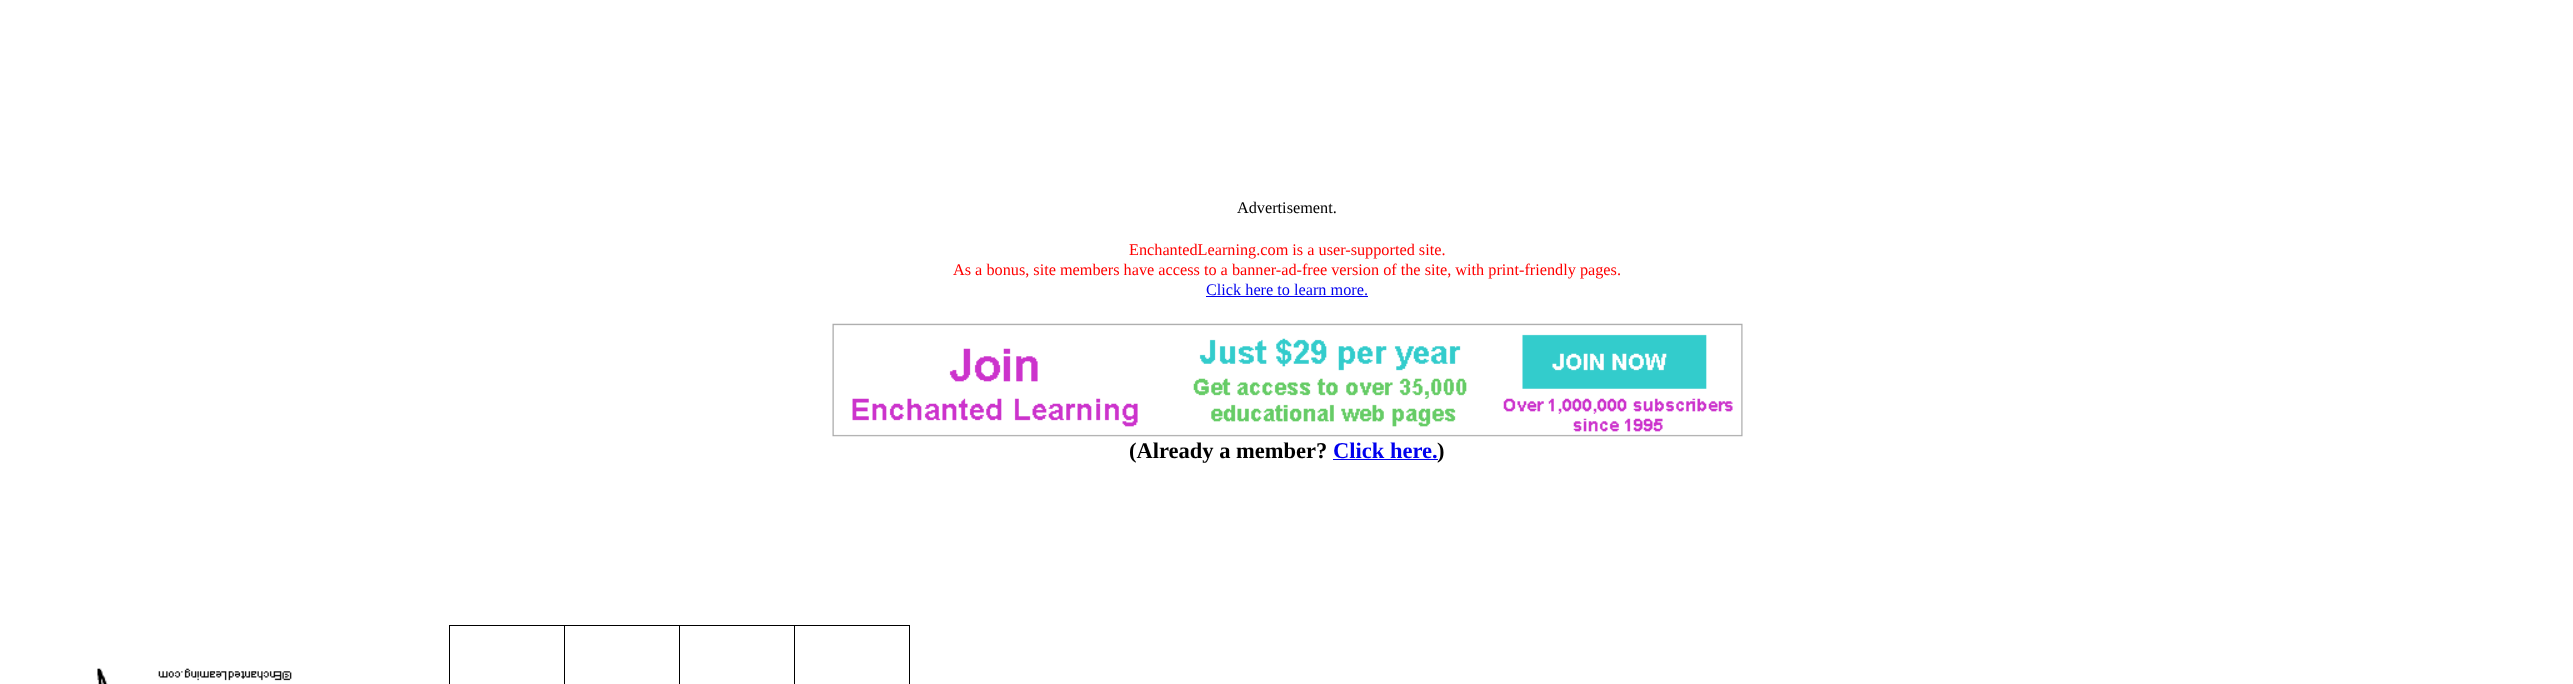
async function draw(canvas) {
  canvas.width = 2573
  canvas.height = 684
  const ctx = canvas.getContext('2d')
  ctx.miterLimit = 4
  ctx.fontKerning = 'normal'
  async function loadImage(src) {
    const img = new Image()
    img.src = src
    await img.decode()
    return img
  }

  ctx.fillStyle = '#fff'
  ctx.fillRect(0, 0, 2573, 684)
  ctx.font = '16.25px Liberation Serif'
  ctx.fillStyle = '#000'
  ctx.fillText('Advertisement.', 1237, 213)
  ctx.fillStyle = '#f00'
  ctx.fillText('EnchantedLearning.com is a user-supported site.', 1129, 255)
  ctx.fillText('As a bonus, site members have access to a banner-ad-free version of the site, with print-friendly pages.', 953, 275)
  ctx.fillStyle = '#00e'
  ctx.fillText('Click here to learn more.', 1206, 295)
  ctx.fillRect(1206, 296, 162, 1)
  ctx.drawImage(await loadImage('image0.png'), 832, 323, 911, 114)
  ctx.font = 'bold 22.5px Liberation Serif'
  ctx.fillStyle = '#000'
  ctx.fillText('(Already a member?', 1129, 458)
  ctx.fillStyle = '#00e'
  ctx.fillText('Click here.', 1333, 458)
  ctx.fillStyle = '#000'
  ctx.fillText(')', 1437, 458)
  ctx.fillStyle = '#00e'
  ctx.fillRect(1333, 459, 105, 1)
  ctx.drawImage(await loadImage('image1.png'), 97, 668, 195, 16)
  ctx.fillStyle = '#000'
  ctx.fillRect(449, 625, 1, 59)
  ctx.fillRect(564, 625, 1, 59)
  ctx.fillRect(679, 625, 1, 59)
  ctx.fillRect(794, 625, 1, 59)
  ctx.fillRect(794, 625, 116, 1)
  ctx.fillRect(679, 625, 116, 1)
  ctx.fillRect(564, 625, 116, 1)
  ctx.fillRect(449, 625, 116, 1)
  ctx.fillRect(909, 625, 1, 59)
}

draw(document.querySelector('canvas'))
